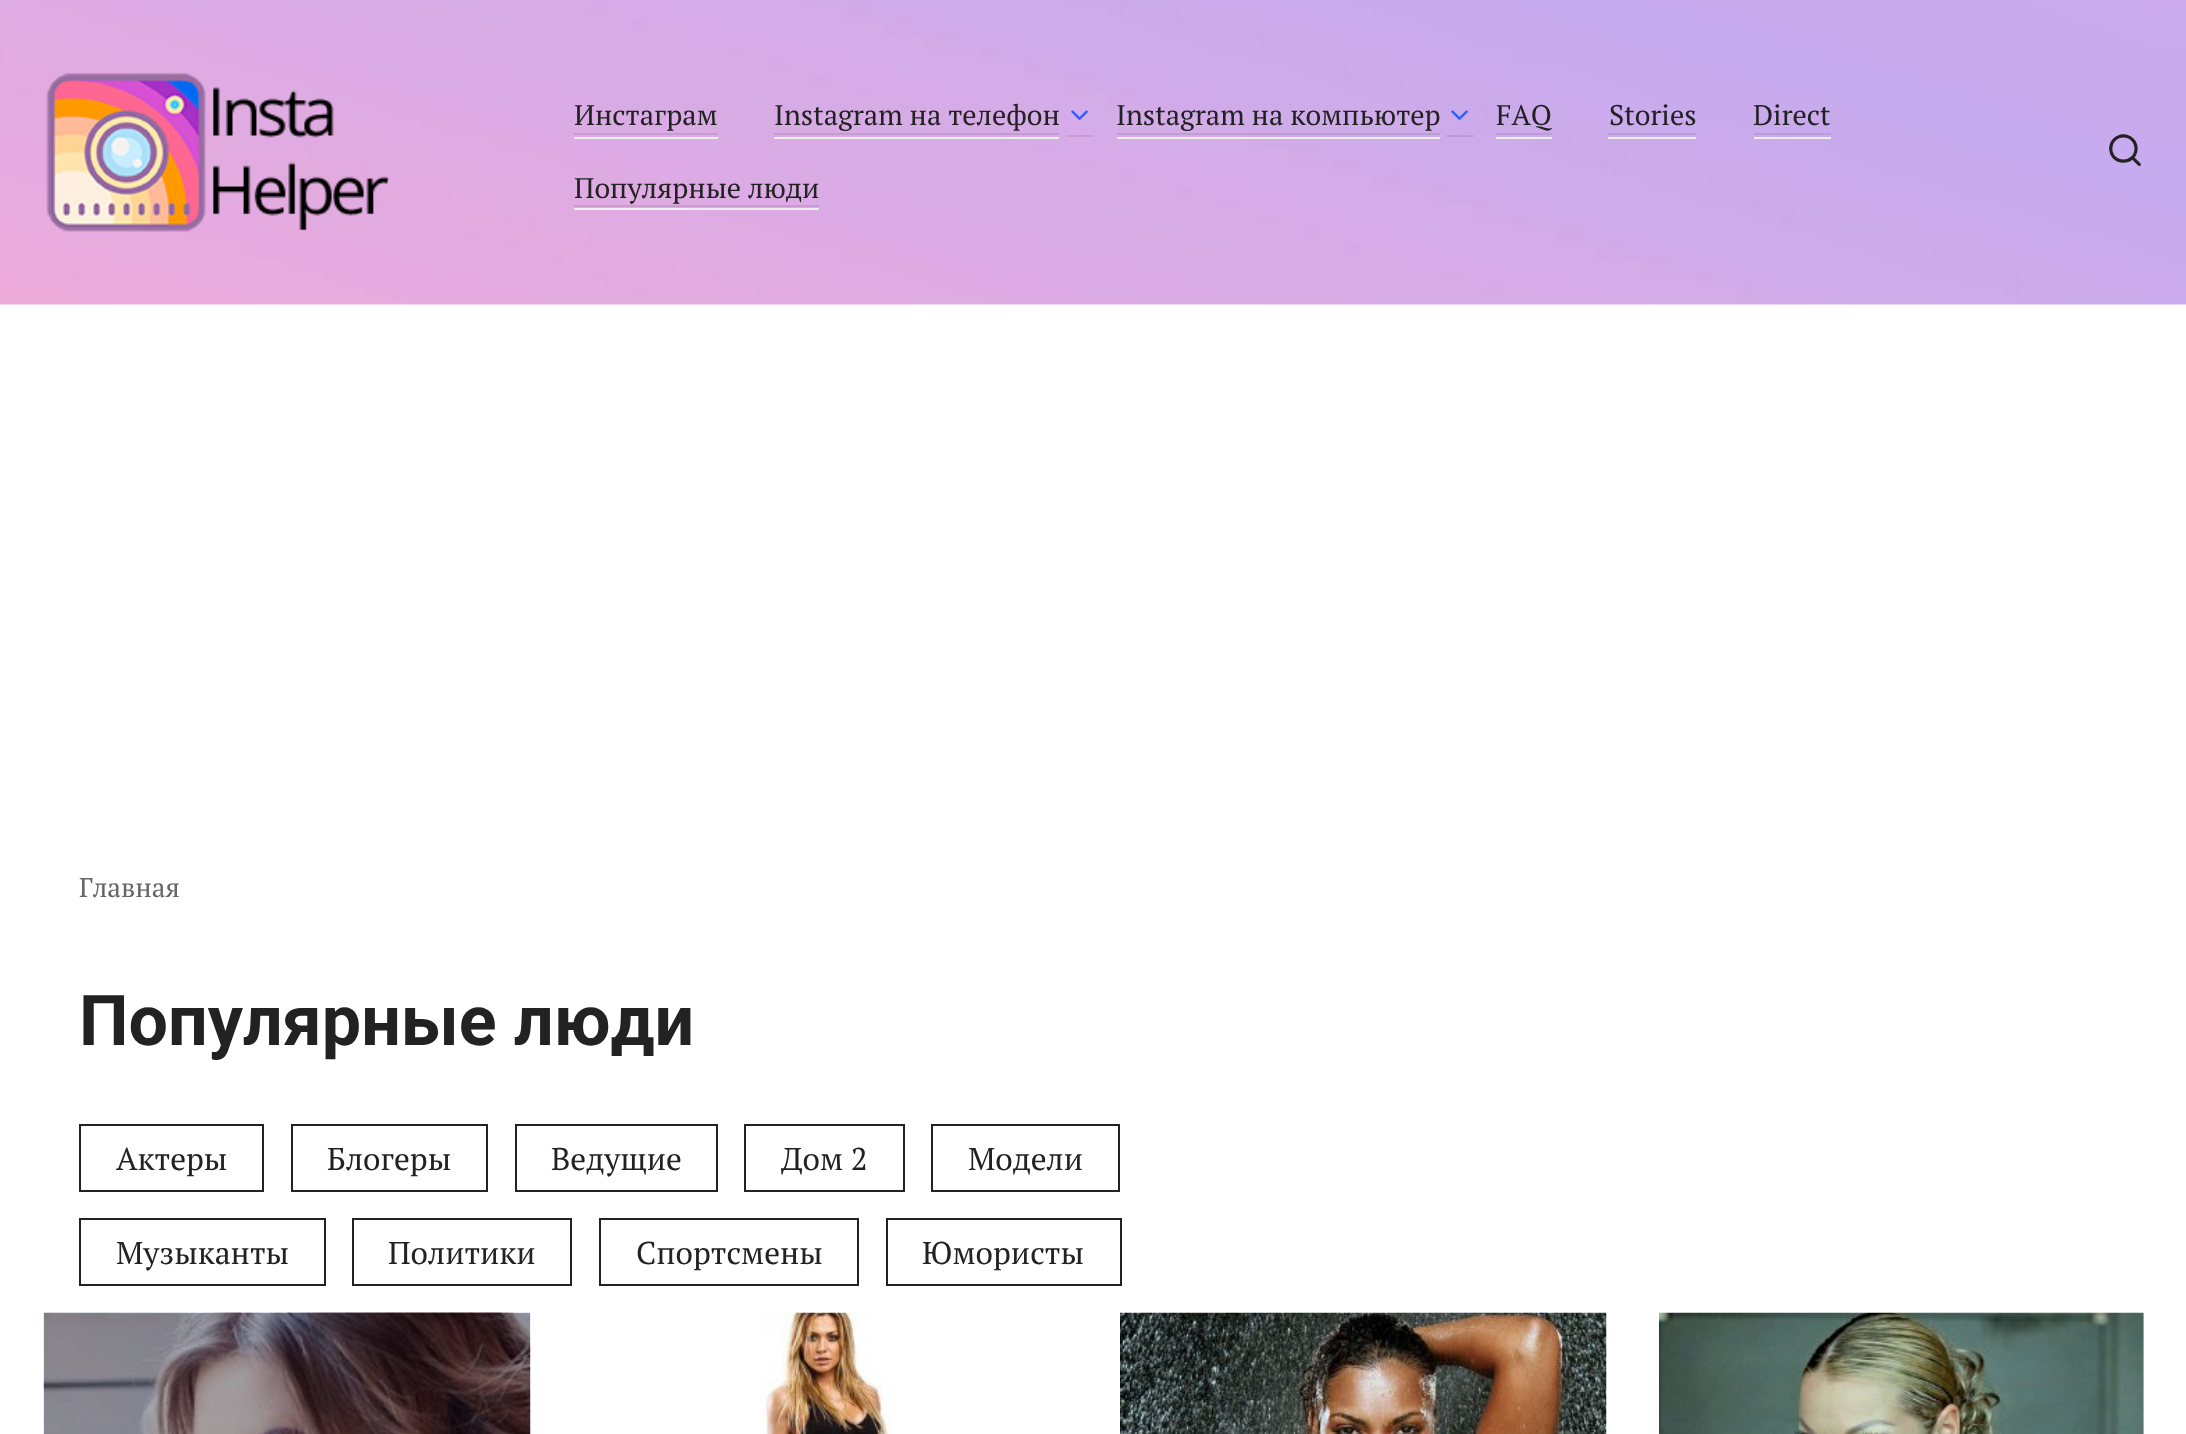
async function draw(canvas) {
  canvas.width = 2186
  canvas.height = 1434
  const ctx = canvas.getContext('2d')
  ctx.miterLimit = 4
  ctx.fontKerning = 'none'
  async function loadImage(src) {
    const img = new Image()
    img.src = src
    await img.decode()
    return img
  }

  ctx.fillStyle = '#fff'
  ctx.fillRect(0, 0, 2186, 1434)
  ctx.drawImage(await loadImage('image0.png'), 0, 0, 2186, 305)
  ctx.drawImage(await loadImage('image1.png'), 46, 73, 344, 159)
  ctx.fillStyle = '#eee'
  ctx.fillRect(574, 137, 144, 2)
  ctx.font = '28.4px PT Serif'
  ctx.fillStyle = '#222'
  ctx.fillText('Инстаграм', 574, 125)
  ctx.fillStyle = '#2222221a'
  ctx.fillRect(574, 133, 144, 2)
  ctx.fillStyle = '#eee'
  ctx.fillRect(774, 137, 285, 2)
  ctx.fillStyle = '#2222221a'
  ctx.fillRect(774, 133, 285, 2)
  ctx.fillStyle = '#c59dd4'
  ctx.fillRect(1066, 135, 28, 2)
  ctx.fillStyle = '#222'
  ctx.fillText('Instagram на телефон', 774, 125)
  ctx.font = '28.4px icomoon'
  ctx.fillStyle = '#305cf7'
  ctx.fillText('⮟', 1065, 127)
  ctx.fillStyle = '#eee'
  ctx.fillRect(1117, 137, 323, 2)
  ctx.fillStyle = '#2222221a'
  ctx.fillRect(1117, 133, 323, 2)
  ctx.fillStyle = '#bd9dd7'
  ctx.fillRect(1446, 135, 28, 2)
  ctx.font = '28.4px PT Serif'
  ctx.fillStyle = '#222'
  ctx.fillText('Instagram на компьютер', 1116, 125)
  ctx.font = '28.4px icomoon'
  ctx.fillStyle = '#305cf7'
  ctx.fillText('⮟', 1445, 127)
  ctx.fillStyle = '#eee'
  ctx.fillRect(1496, 137, 56, 2)
  ctx.font = '28.4px PT Serif'
  ctx.fillStyle = '#222'
  ctx.fillText('FAQ', 1496, 125)
  ctx.fillStyle = '#bc9cd6'
  ctx.fillRect(1496, 133, 56, 2)
  ctx.fillStyle = '#eee'
  ctx.fillRect(1608, 137, 88, 2)
  ctx.fillStyle = '#222'
  ctx.fillText('Stories', 1609, 125)
  ctx.fillStyle = '#2222221a'
  ctx.fillRect(1608, 133, 88, 2)
  ctx.fillStyle = '#eee'
  ctx.fillRect(1754, 137, 77, 2)
  ctx.fillStyle = '#222'
  ctx.fillText('Direct', 1753, 125)
  ctx.fillStyle = '#b89dd9'
  ctx.fillRect(1754, 133, 77, 2)
  ctx.fillStyle = '#eee'
  ctx.fillRect(574, 208, 245, 2)
  ctx.fillStyle = '#222'
  ctx.fillText('Популярные люди', 574, 198)
  ctx.fillStyle = '#2222221a'
  ctx.fillRect(574, 205, 245, 2)
  ctx.font = '38px icomoon'
  ctx.fillStyle = '#222'
  ctx.fillText('🔍', 2106, 166)
  ctx.font = '27px PT Serif'
  ctx.fillStyle = '#666'
  ctx.fillText('Главная', 79, 897)
  ctx.font = 'bold 70px Roboto'
  ctx.fillStyle = '#222'
  ctx.fillText('Популярные люди', 79, 1045)
  ctx.strokeStyle = '#222'
  ctx.lineWidth = 2
  ctx.strokeRect(80, 1125, 183, 66)
  ctx.font = '31.5px PT Serif'
  ctx.fillText('Актеры', 116, 1170)
  ctx.strokeRect(292, 1125, 195, 66)
  ctx.fillText('Блогеры', 327, 1170)
  ctx.strokeRect(516, 1125, 201, 66)
  ctx.fillText('Ведущие', 551, 1170)
  ctx.strokeRect(745, 1125, 159, 66)
  ctx.fillText('Дом 2', 781, 1170)
  ctx.strokeRect(932, 1125, 187, 66)
  ctx.fillText('Модели', 968, 1170)
  ctx.strokeRect(80, 1219, 245, 66)
  ctx.fillText('Музыканты', 116, 1264)
  ctx.strokeRect(353, 1219, 218, 66)
  ctx.fillText('Политики', 388, 1264)
  ctx.strokeRect(600, 1219, 258, 66)
  ctx.fillText('Спортсмены', 636, 1264)
  ctx.strokeRect(887, 1219, 234, 66)
  ctx.fillText('Юмористы', 922, 1264)
  ctx.drawImage(await loadImage('image2.png'), 43, 1312, 488, 122)
  ctx.drawImage(await loadImage('image3.png'), 759, 1312, 134, 122)
  ctx.drawImage(await loadImage('image4.png'), 1120, 1312, 487, 122)
  ctx.drawImage(await loadImage('image5.png'), 1659, 1312, 485, 122)
}

draw(document.querySelector('canvas'))
